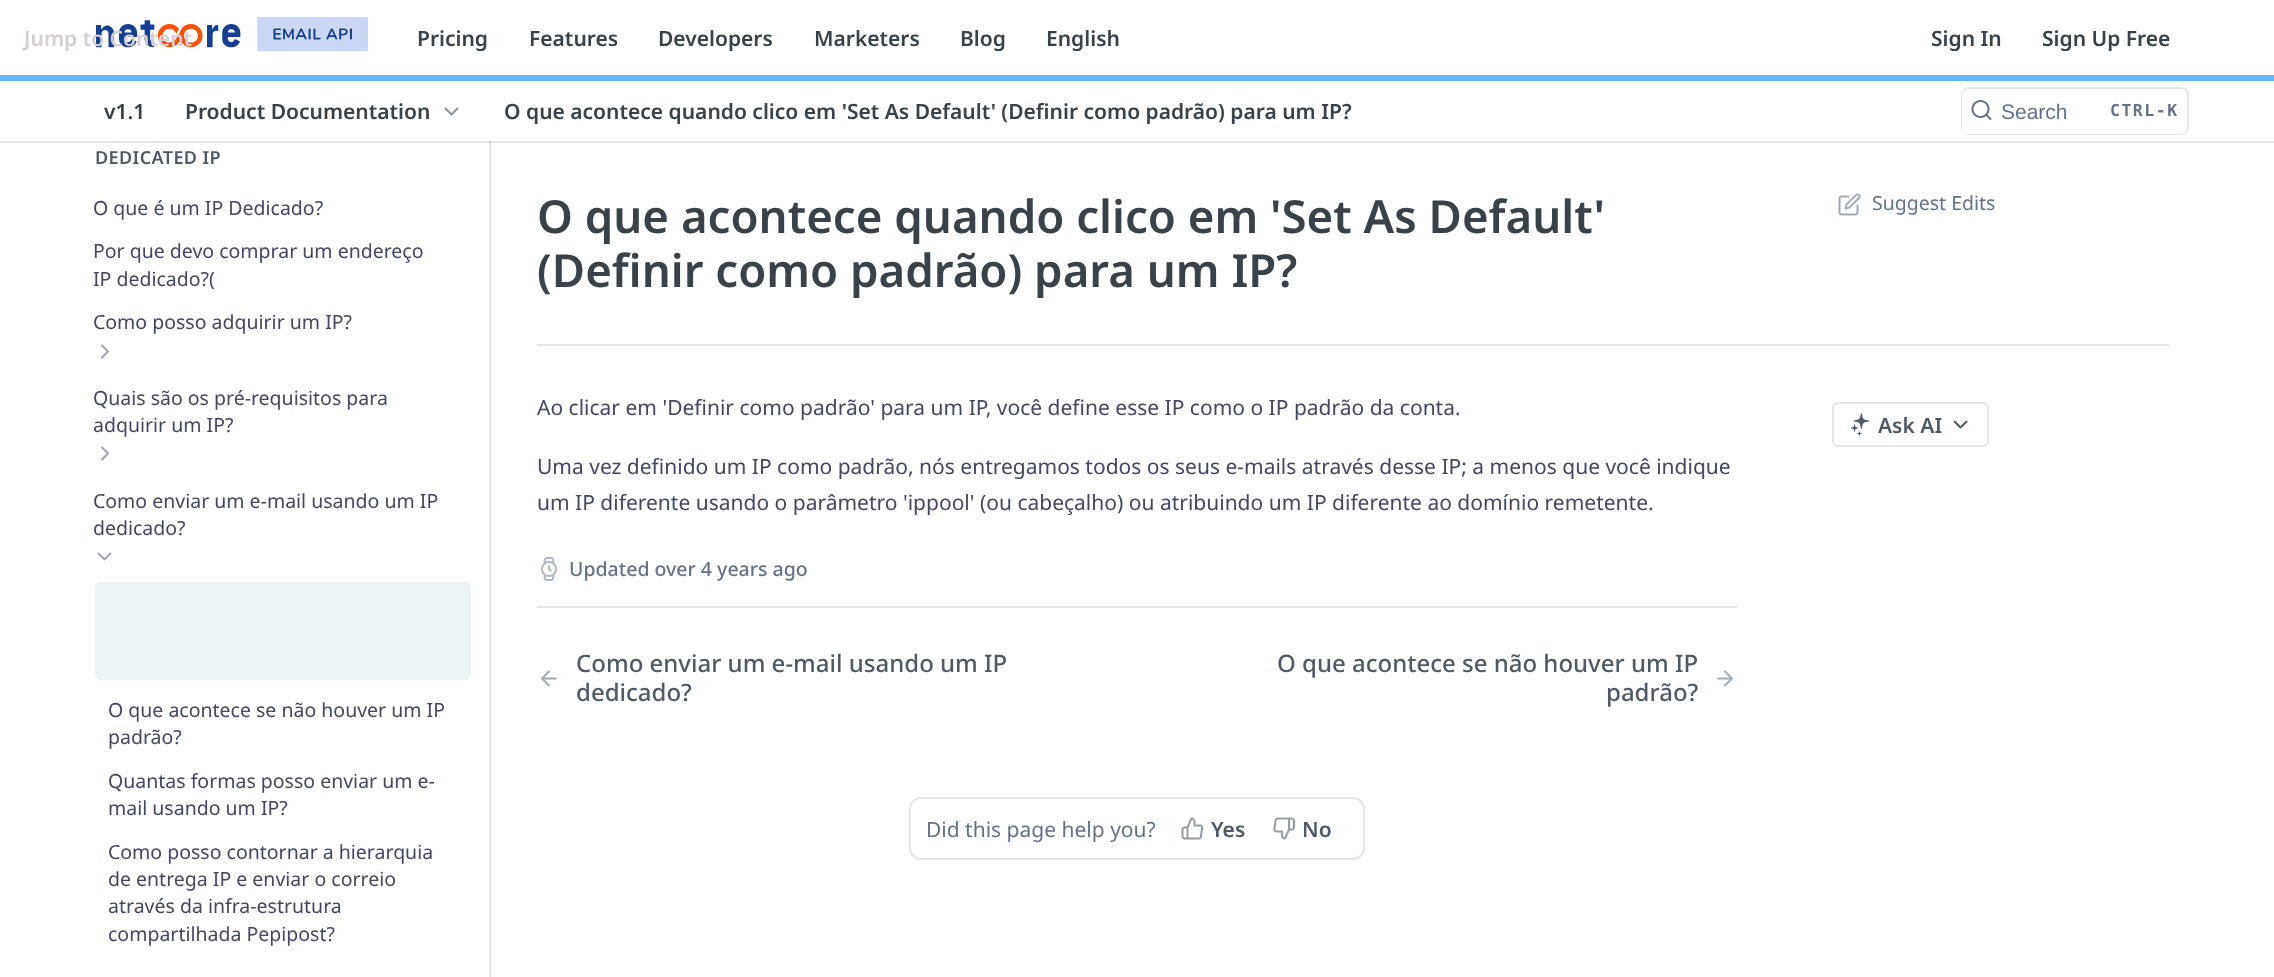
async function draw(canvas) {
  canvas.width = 2274
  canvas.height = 977
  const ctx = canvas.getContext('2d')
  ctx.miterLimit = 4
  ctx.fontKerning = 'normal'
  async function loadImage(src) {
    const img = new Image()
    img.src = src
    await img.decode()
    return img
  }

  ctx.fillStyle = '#fff'
  ctx.fillRect(0, 0, 2274, 977)
  ctx.fillStyle = '#e6e6e6'
  ctx.fillRect(0, 141, 2274, 2)
  ctx.fillStyle = '#62b9ff'
  ctx.fillRect(0, 75, 2274, 6)
  ctx.drawImage(await loadImage('image0.png'), 96, 17, 273, 35)
  ctx.font = '600 21px Noto Sans'
  ctx.fillStyle = '#d7cdd4'
  ctx.fillText('Jump to Content', 24, 46)
  ctx.fillStyle = '#384248'
  ctx.fillText('Pricing', 417, 46)
  ctx.fillText('Features', 529, 46)
  ctx.fillText('Developers', 658, 46)
  ctx.fillText('Marketers', 814, 46)
  ctx.fillText('Blog', 960, 46)
  ctx.fillText('English', 1046, 46)
  ctx.fillText('Sign In', 1931, 46)
  ctx.fillText('Sign Up Free', 2042, 46)
  ctx.fillText('v1.1', 104, 119)
  ctx.fillText('Product Documentation', 185, 119)
  ctx.drawImage(await loadImage('image1.png'), 444, 107, 15, 9)
  ctx.fillText('O que acontece quando clico em \'Set As Default\' (Definir como padrão) para um IP?', 504, 119)
  ctx.beginPath()
  ctx.roundRect(1962, 88, 226, 46, 7)
  ctx.strokeStyle = '#e6e6e6'
  ctx.lineWidth = 2
  ctx.stroke()
  ctx.fillStyle = '#fff'
  ctx.beginPath()
  ctx.roundRect(1962, 89, 225, 45, 6)
  ctx.fill()
  ctx.drawImage(await loadImage('image2.png'), 1971, 100, 21, 20)
  ctx.font = '21px Liberation Sans'
  ctx.fillStyle = '#637288'
  ctx.fillText('Search', 2001, 119)
  ctx.letterSpacing = '1.5px'
  ctx.font = 'bold 16.5px DejaVu Sans Mono'
  ctx.fillText('CTRL-K', 2110, 116)
  ctx.fillStyle = '#e6e6e6'
  ctx.fillRect(489, 141, 2, 836)
  ctx.fillStyle = '#cfcfcf'
  ctx.fillRect(489, 141, 2, 2)
  ctx.letterSpacing = '0.4px'
  ctx.font = '600 18px Noto Sans'
  ctx.fillStyle = '#4f5a66'
  ctx.fillText('DEDICATED IP', 95, 164)
  ctx.letterSpacing = '0px'
  ctx.font = '19.5px Noto Sans'
  ctx.fillStyle = '#434761'
  ctx.fillText('O que é um IP Dedicado?', 93, 215)
  ctx.fillText('Por que devo comprar um endereço', 93, 258)
  ctx.fillText('IP dedicado?(', 93, 286)
  ctx.fillText('Como posso adquirir um IP?', 93, 329)
  ctx.drawImage(await loadImage('image3.png'), 101, 344, 8, 15)
  ctx.fillText('Quais são os pré-requisitos para', 93, 405)
  ctx.fillText('adquirir um IP?', 93, 432)
  ctx.drawImage(await loadImage('image3.png'), 101, 446, 8, 15)
  ctx.fillText('Como enviar um e-mail usando um IP', 93, 508)
  ctx.fillText('dedicado?', 93, 535)
  ctx.drawImage(await loadImage('image4.png'), 97, 552, 15, 9)
  ctx.fillStyle = '#ebf3f5'
  ctx.beginPath()
  ctx.roundRect(95, 582, 376, 98, 5)
  ctx.fill()
  ctx.fillStyle = '#434761'
  ctx.fillText('O que acontece se não houver um IP', 108, 717)
  ctx.fillText('padrão?', 108, 744)
  ctx.fillText('Quantas formas posso enviar um e-', 108, 788)
  ctx.fillText('mail usando um IP?', 108, 815)
  ctx.fillText('Como posso contornar a hierarquia', 108, 859)
  ctx.fillText('de entrega IP e enviar o correio', 108, 886)
  ctx.fillText('através da infra-estrutura', 108, 913)
  ctx.fillText('compartilhada Pepipost?', 108, 941)
  ctx.fillStyle = '#e6e6e6'
  ctx.fillRect(537, 344, 1632, 2)
  ctx.font = '600 45.6px Noto Sans'
  ctx.fillStyle = '#384248'
  ctx.fillText('O que acontece quando clico em \'Set As Default\'', 537, 233)
  ctx.fillText('(Definir como padrão) para um IP?', 537, 287)
  ctx.drawImage(await loadImage('image5.png'), 1838, 193, 23, 23)
  ctx.font = '19.5px Noto Sans'
  ctx.fillStyle = '#637288'
  ctx.fillText('Suggest Edits', 1872, 210)
  ctx.font = '21px Noto Sans'
  ctx.fillStyle = '#434761'
  ctx.fillText('Ao clicar em \'Definir como padrão\' para um IP, você define esse IP como o IP padrão da conta.', 537, 415)
  ctx.fillText('Uma vez definido um IP como padrão, nós entregamos todos os seus e-mails através desse IP; a menos que você indique', 537, 474)
  ctx.fillText('um IP diferente usando o parâmetro \'ippool\' (ou cabeçalho) ou atribuindo um IP diferente ao domínio remetente.', 537, 510)
  ctx.drawImage(await loadImage('image6.png'), 541, 557, 16, 24)
  ctx.font = '500 19.5px Noto Sans'
  ctx.fillStyle = '#637288'
  ctx.fillText('Updated over 4 years ago', 569, 576)
  ctx.fillStyle = '#e6e6e6'
  ctx.fillRect(537, 606, 1200, 2)
  ctx.drawImage(await loadImage('image7.png'), 541, 670, 16, 17)
  ctx.font = '500 24px Noto Sans'
  ctx.fillStyle = '#4f5a66'
  ctx.fillText('Como enviar um e-mail usando um IP', 576, 672)
  ctx.fillText('dedicado?', 576, 701)
  ctx.fillText('O que acontece se não houver um IP', 1277, 672)
  ctx.fillText('padrão?', 1606, 701)
  ctx.drawImage(await loadImage('image8.png'), 1717, 670, 16, 17)
  ctx.beginPath()
  ctx.roundRect(910, 798, 454, 61, 11)
  ctx.stroke()
  ctx.font = '21px Noto Sans'
  ctx.fillStyle = '#637288'
  ctx.fillText('Did this page help you?', 926, 837)
  ctx.drawImage(await loadImage('image9.png'), 1181, 817, 23, 23)
  ctx.font = '600 21px Noto Sans'
  ctx.fillStyle = '#4f5a66'
  ctx.fillText('Yes', 1211, 837)
  ctx.drawImage(await loadImage('image10.png'), 1273, 817, 22, 23)
  ctx.fillText('No', 1302, 837)
  ctx.beginPath()
  ctx.roundRect(1833, 403, 155, 43, 5)
  ctx.stroke()
  ctx.drawImage(await loadImage('image11.png'), 1850, 413, 20, 23)
  ctx.fillText('Ask AI', 1878, 433)
  ctx.beginPath()
  ctx.moveTo(1954.5, 421.5)
  ctx.lineTo(1960.5, 427.5)
  ctx.lineTo(1966.5, 421.5)
  ctx.strokeStyle = '#4f5a66'
  ctx.lineCap = 'round'
  ctx.lineJoin = 'round'
  ctx.stroke()
}

draw(document.querySelector('canvas'))
